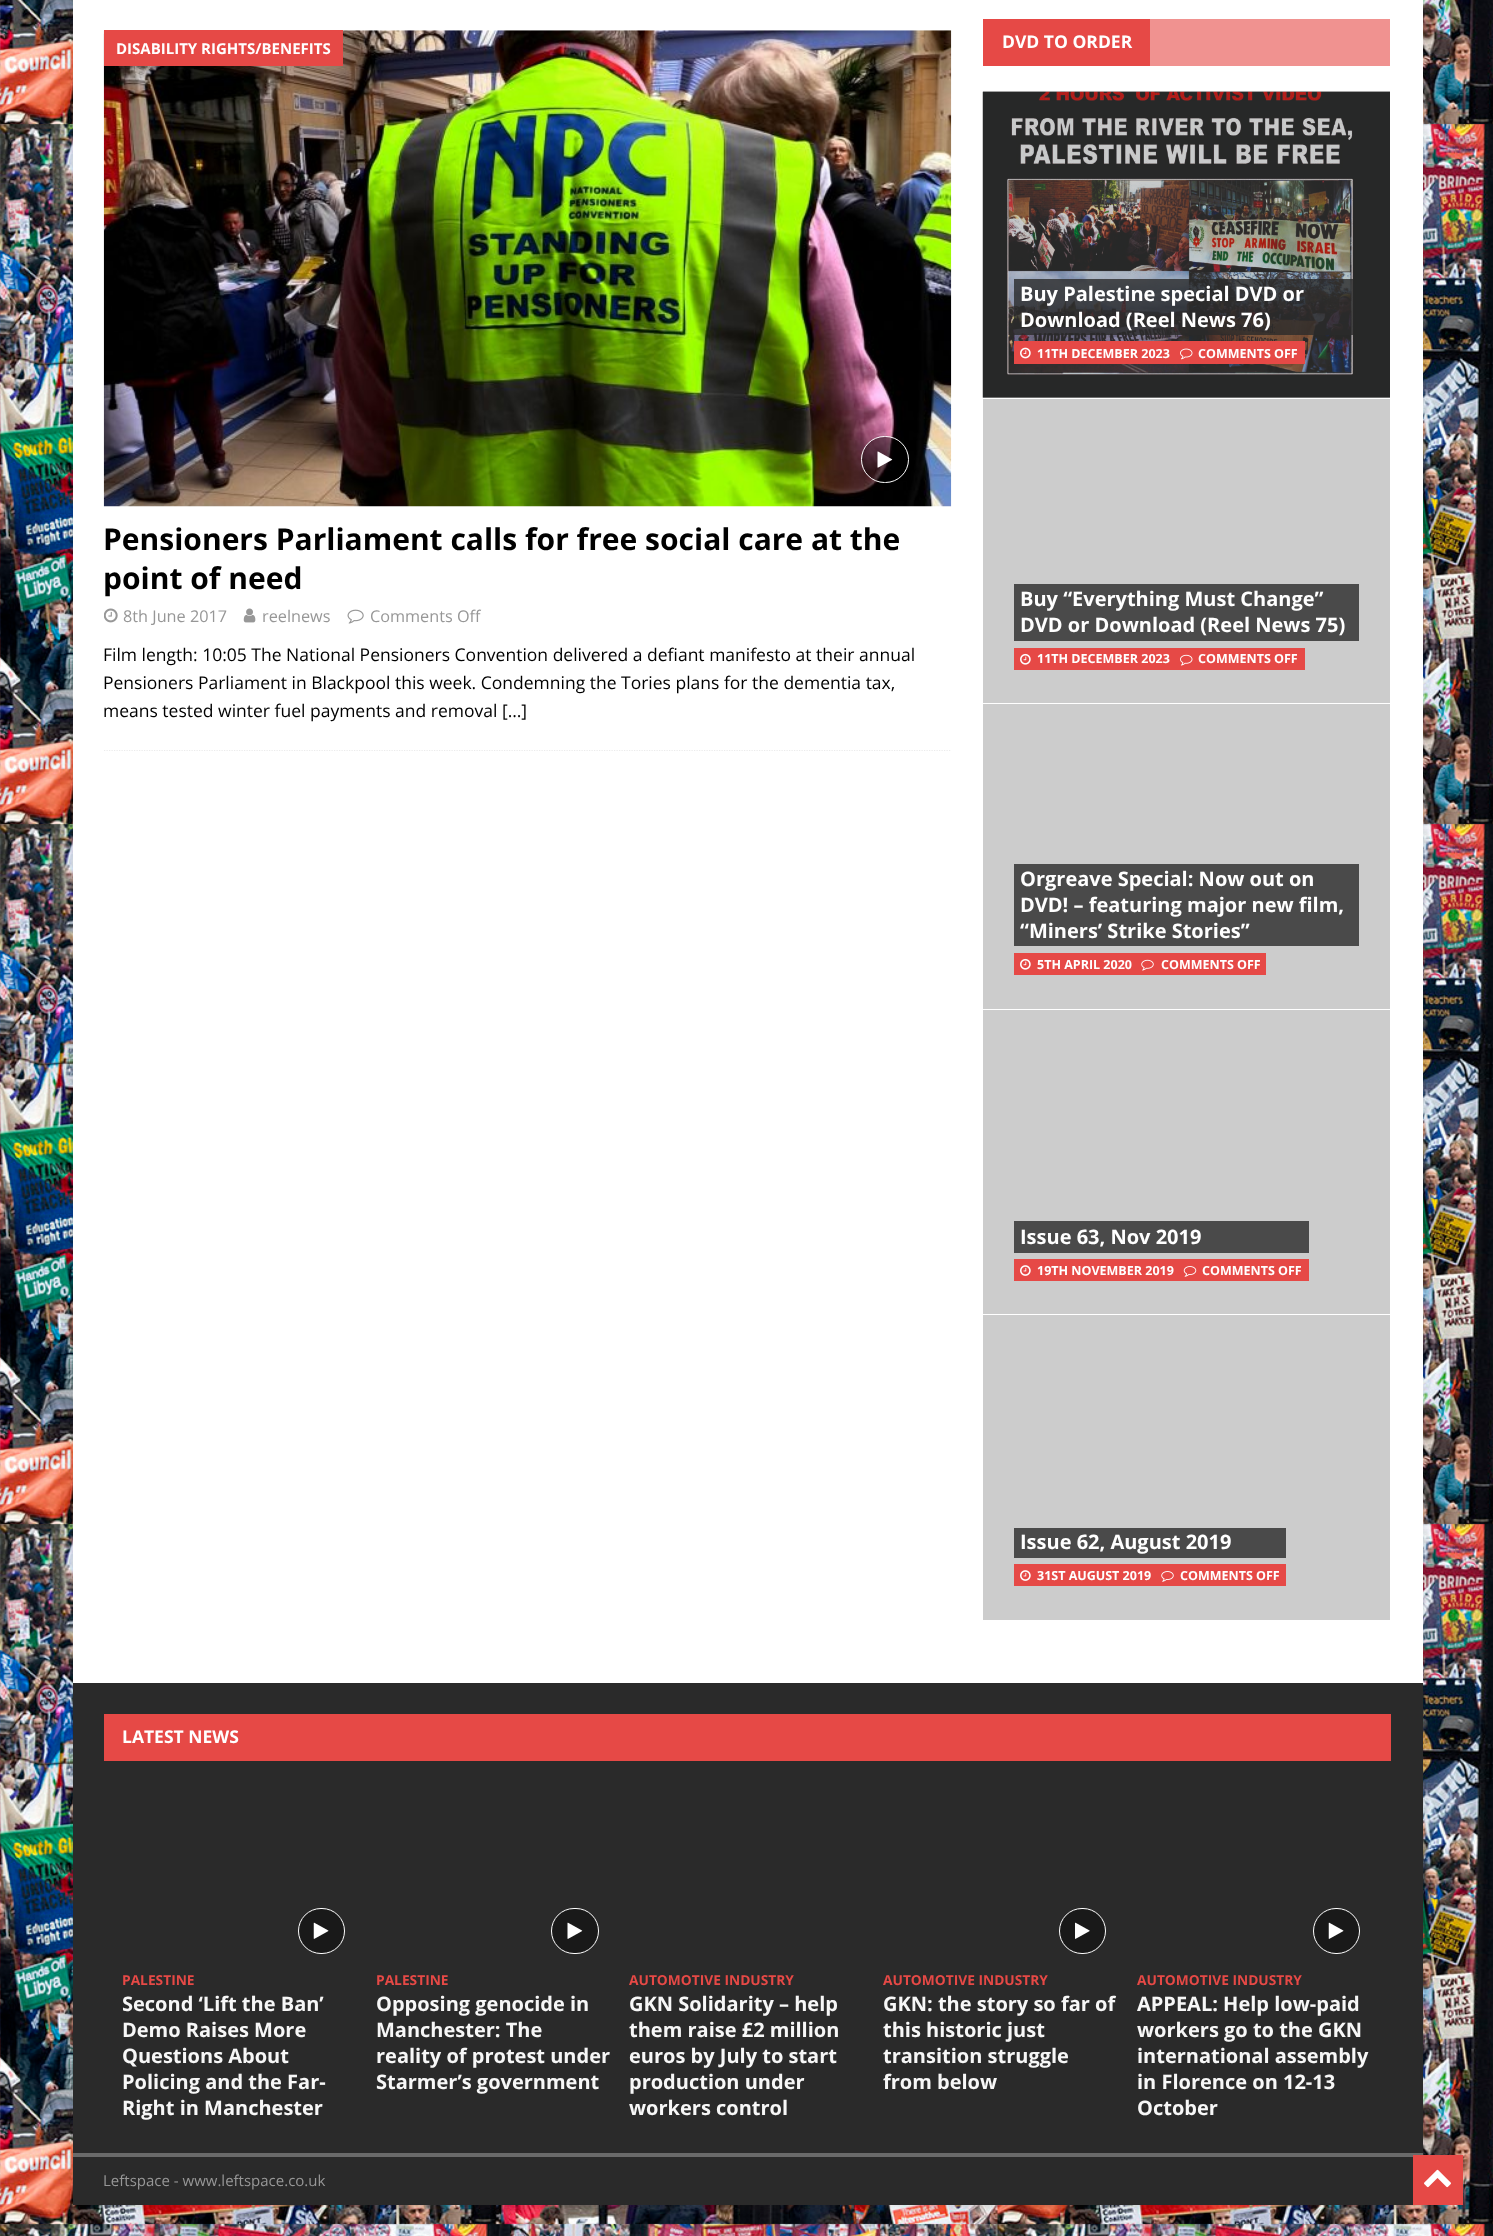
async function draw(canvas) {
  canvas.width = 1493
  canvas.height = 2236
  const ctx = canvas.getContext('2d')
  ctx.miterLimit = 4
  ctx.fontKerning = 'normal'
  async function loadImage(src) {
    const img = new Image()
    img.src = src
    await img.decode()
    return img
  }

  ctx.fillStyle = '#fff'
  ctx.fillRect(0, 0, 1493, 2236)
  ctx.drawImage(await loadImage('image0.png'), 0, 0, 1493, 2236)
  ctx.fillStyle = '#3232322b'
  ctx.filter = 'blur(6px)'
  ctx.beginPath()
  ctx.rect(73, -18, 1350, 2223)
  ctx.fill()
  ctx.filter = 'none'
  ctx.fillStyle = '#fff'
  ctx.fillRect(73, 0, 1350, 1683)
  ctx.save()
  ctx.beginPath()
  ctx.rect(104, 0, 847, 751)
  ctx.clip()
  ctx.beginPath()
  ctx.moveTo(104, 750.5)
  ctx.lineTo(951, 750.5)
  ctx.strokeStyle = '#ebebeb'
  ctx.lineWidth = 1.2
  ctx.setLineDash([1.25, 1.25])
  ctx.stroke()
  ctx.restore()
  ctx.drawImage(await loadImage('image1.png'), 103, 30, 849, 477)
  ctx.fillStyle = '#00000066'
  ctx.beginPath()
  ctx.roundRect(861.5, 436.5, 47, 46, 23)
  ctx.fill()
  ctx.strokeStyle = '#fff'
  ctx.stroke()
  ctx.drawImage(await loadImage('image2.png'), 877, 451, 16, 17)
  ctx.fillStyle = '#e64946'
  ctx.fillRect(104, 30, 239, 36)
  ctx.font = 'bold 15px Open Sans'
  ctx.fillStyle = '#fff'
  ctx.fillText('DISABILITY RIGHTS/BENEFITS', 116, 54)
  ctx.font = 'bold 30px Open Sans'
  ctx.fillStyle = '#000'
  ctx.fillText('Pensioners Parliament calls for free social care at the', 103, 550)
  ctx.fillText('point of need', 103, 589)
  ctx.drawImage(await loadImage('image3.png'), 104, 608, 14, 15)
  ctx.font = '16.25px Open Sans'
  ctx.fillStyle = '#979797'
  ctx.fillText('8th June 2017', 123, 622)
  ctx.drawImage(await loadImage('image4.png'), 243, 608, 13, 15)
  ctx.fillText('reelnews', 262, 622)
  ctx.drawImage(await loadImage('image5.png'), 347, 609, 17, 15)
  ctx.fillText('Comments Off', 370, 622)
  ctx.font = '17.5px Open Sans'
  ctx.fillStyle = '#000'
  ctx.fillText('Film length: 10:05 The National Pensioners Convention delivered a defiant manifesto at their annual', 103, 661)
  ctx.fillText('Pensioners Parliament in Blackpool this week. Condemning the Tories plans for the dementia tax,', 103, 689)
  ctx.fillText('means tested winter fuel payments and removal […]', 103, 717)
  ctx.fillStyle = '#f09290'
  ctx.fillRect(1150, 19, 240, 47)
  ctx.fillStyle = '#e64946'
  ctx.fillRect(983, 19, 167, 47)
  ctx.font = 'bold 17.5px Open Sans'
  ctx.fillStyle = '#fff'
  ctx.fillText('DVD TO ORDER', 1002, 48)
  ctx.drawImage(await loadImage('image6.png'), 982, 91, 408, 307)
  ctx.fillStyle = '#00000033'
  ctx.fillRect(983, 91, 407, 307)
  ctx.fillStyle = '#2a2a2acc'
  ctx.fillRect(1014, 279, 339, 56)
  ctx.font = 'bold 20px Open Sans'
  ctx.fillStyle = '#fff'
  ctx.fillText('Buy Palestine special DVD or', 1020, 301)
  ctx.fillText('Download (Reel News 76)', 1020, 327)
  ctx.fillStyle = '#e64946'
  ctx.fillRect(1014, 341, 291, 23)
  ctx.drawImage(await loadImage('image7.png'), 1020, 347, 11, 12)
  ctx.font = 'bold 12.5px Open Sans'
  ctx.fillStyle = '#fff'
  ctx.fillText('11TH DECEMBER 2023', 1037, 358)
  ctx.drawImage(await loadImage('image8.png'), 1180, 348, 13, 12)
  ctx.fillText('COMMENTS OFF', 1198, 358)
  ctx.fillStyle = '#ccc'
  ctx.fillRect(983, 399, 407, 304)
  ctx.fillStyle = '#4a4a4a'
  ctx.fillRect(1014, 584, 345, 57)
  ctx.font = 'bold 20px Open Sans'
  ctx.fillStyle = '#fff'
  ctx.fillText('Buy “Everything Must Change”', 1020, 606)
  ctx.fillText('DVD or Download (Reel News 75)', 1020, 632)
  ctx.fillStyle = '#e64946'
  ctx.fillRect(1014, 648, 291, 22)
  ctx.drawImage(await loadImage('image9.png'), 1020, 653, 11, 12)
  ctx.font = 'bold 12.5px Open Sans'
  ctx.fillStyle = '#fff'
  ctx.fillText('11TH DECEMBER 2023', 1037, 663)
  ctx.drawImage(await loadImage('image10.png'), 1180, 654, 13, 12)
  ctx.fillText('COMMENTS OFF', 1198, 663)
  ctx.fillStyle = '#ccc'
  ctx.fillRect(983, 704, 407, 305)
  ctx.fillStyle = '#4a4a4a'
  ctx.fillRect(1014, 864, 345, 82)
  ctx.font = 'bold 20px Open Sans'
  ctx.fillStyle = '#fff'
  ctx.fillText('Orgreave Special: Now out on', 1020, 886)
  ctx.fillText('DVD! – featuring major new film,', 1020, 912)
  ctx.fillText('“Miners’ Strike Stories”', 1020, 938)
  ctx.fillStyle = '#e64946'
  ctx.fillRect(1014, 953, 252, 22)
  ctx.drawImage(await loadImage('image9.png'), 1020, 958, 11, 12)
  ctx.font = 'bold 12.5px Open Sans'
  ctx.fillStyle = '#fff'
  ctx.fillText('5TH APRIL 2020', 1037, 969)
  ctx.drawImage(await loadImage('image11.png'), 1141, 959, 13, 12)
  ctx.fillText('COMMENTS OFF', 1161, 969)
  ctx.fillStyle = '#ccc'
  ctx.fillRect(983, 1010, 407, 304)
  ctx.fillStyle = '#4a4a4a'
  ctx.fillRect(1014, 1221, 295, 32)
  ctx.font = 'bold 20px Open Sans'
  ctx.fillStyle = '#fff'
  ctx.fillText('Issue 63, Nov 2019', 1020, 1244)
  ctx.fillStyle = '#e64946'
  ctx.fillRect(1014, 1259, 295, 22)
  ctx.drawImage(await loadImage('image12.png'), 1020, 1265, 11, 11)
  ctx.font = 'bold 12.5px Open Sans'
  ctx.fillStyle = '#fff'
  ctx.fillText('19TH NOVEMBER 2019', 1037, 1275)
  ctx.drawImage(await loadImage('image13.png'), 1183, 1266, 14, 11)
  ctx.fillText('COMMENTS OFF', 1202, 1275)
  ctx.fillStyle = '#ccc'
  ctx.fillRect(983, 1315, 407, 305)
  ctx.fillStyle = '#4a4a4a'
  ctx.fillRect(1014, 1528, 272, 30)
  ctx.font = 'bold 20px Open Sans'
  ctx.fillStyle = '#fff'
  ctx.fillText('Issue 62, August 2019', 1020, 1549)
  ctx.fillStyle = '#e64946'
  ctx.fillRect(1014, 1564, 272, 22)
  ctx.drawImage(await loadImage('image12.png'), 1020, 1570, 11, 11)
  ctx.font = 'bold 12.5px Open Sans'
  ctx.fillStyle = '#fff'
  ctx.fillText('31ST AUGUST 2019', 1037, 1580)
  ctx.drawImage(await loadImage('image14.png'), 1161, 1571, 13, 11)
  ctx.fillText('COMMENTS OFF', 1180, 1580)
  ctx.fillStyle = '#2a2a2a'
  ctx.fillRect(73, 1683, 1350, 470)
  ctx.fillStyle = '#e64946'
  ctx.fillRect(104, 1714, 1287, 47)
  ctx.font = 'bold 17.5px Open Sans'
  ctx.fillStyle = '#fff'
  ctx.fillText('LATEST NEWS', 122, 1743)
  ctx.fillStyle = '#191919'
  ctx.beginPath()
  ctx.roundRect(298.5, 1908.5, 46, 45, 22.5)
  ctx.fill()
  ctx.stroke()
  ctx.drawImage(await loadImage('image15.png'), 313, 1922, 16, 17)
  ctx.font = 'bold 13.75px Open Sans'
  ctx.fillStyle = '#e64946'
  ctx.fillText('PALESTINE', 122, 1985)
  ctx.save()
  ctx.beginPath()
  ctx.rect(123, 1786, 1250, 335)
  ctx.clip()
  ctx.font = 'bold 20px Open Sans'
  ctx.fillStyle = '#f7f7f7'
  ctx.fillText('Second ‘Lift the Ban’', 122, 2011)
  ctx.restore()
  ctx.font = 'bold 20px Open Sans'
  ctx.fillStyle = '#f7f7f7'
  ctx.fillText('Demo Raises More', 122, 2037)
  ctx.fillText('Questions About', 122, 2063)
  ctx.fillText('Policing and the Far-', 122, 2089)
  ctx.fillText('Right in Manchester', 122, 2115)
  ctx.fillStyle = '#191919'
  ctx.beginPath()
  ctx.roundRect(551.5, 1908.5, 47, 45, 22.5)
  ctx.fill()
  ctx.stroke()
  ctx.drawImage(await loadImage('image16.png'), 567, 1922, 16, 17)
  ctx.font = 'bold 13.75px Open Sans'
  ctx.fillStyle = '#e64946'
  ctx.fillText('PALESTINE', 376, 1985)
  ctx.font = 'bold 20px Open Sans'
  ctx.fillStyle = '#f7f7f7'
  ctx.fillText('Opposing genocide in', 376, 2011)
  ctx.fillText('Manchester: The', 376, 2037)
  ctx.fillText('reality of protest under', 376, 2063)
  ctx.fillText('Starmer’s government', 376, 2089)
  ctx.font = 'bold 13.75px Open Sans'
  ctx.fillStyle = '#e64946'
  ctx.fillText('AUTOMOTIVE INDUSTRY', 629, 1985)
  ctx.font = 'bold 20px Open Sans'
  ctx.fillStyle = '#f7f7f7'
  ctx.fillText('GKN Solidarity – help', 629, 2011)
  ctx.fillText('them raise £2 million', 629, 2037)
  ctx.fillText('euros by July to start', 629, 2063)
  ctx.fillText('production under', 629, 2089)
  ctx.fillText('workers control', 629, 2115)
  ctx.fillStyle = '#191919'
  ctx.beginPath()
  ctx.roundRect(1059.5, 1908.5, 46, 45, 22.5)
  ctx.fill()
  ctx.stroke()
  ctx.drawImage(await loadImage('image17.png'), 1075, 1922, 15, 17)
  ctx.font = 'bold 13.75px Open Sans'
  ctx.fillStyle = '#e64946'
  ctx.fillText('AUTOMOTIVE INDUSTRY', 883, 1985)
  ctx.font = 'bold 20px Open Sans'
  ctx.fillStyle = '#f7f7f7'
  ctx.fillText('GKN: the story so far of', 883, 2011)
  ctx.fillText('this historic just', 883, 2037)
  ctx.fillText('transition struggle', 883, 2063)
  ctx.fillText('from below', 883, 2089)
  ctx.fillStyle = '#191919'
  ctx.beginPath()
  ctx.roundRect(1313.5, 1908.5, 46, 45, 22.5)
  ctx.fill()
  ctx.stroke()
  ctx.drawImage(await loadImage('image15.png'), 1328, 1922, 16, 17)
  ctx.font = 'bold 13.75px Open Sans'
  ctx.fillStyle = '#e64946'
  ctx.fillText('AUTOMOTIVE INDUSTRY', 1137, 1985)
  ctx.font = 'bold 20px Open Sans'
  ctx.fillStyle = '#f7f7f7'
  ctx.fillText('APPEAL: Help low-paid', 1137, 2011)
  ctx.fillText('workers go to the GKN', 1137, 2037)
  ctx.fillText('international assembly', 1137, 2063)
  ctx.fillText('in Florence on 12-13', 1137, 2089)
  ctx.fillText('October', 1137, 2115)
  ctx.fillStyle = '#2a2a2a'
  ctx.fillRect(73, 2157, 1340, 48)
  ctx.fillStyle = '#6a6a6a'
  ctx.fillRect(73, 2153, 1350, 4)
  ctx.font = '15px Open Sans'
  ctx.fillStyle = '#979797'
  ctx.fillText('Leftspace - www.leftspace.co.uk', 103, 2186)
  ctx.fillStyle = '#e64946'
  ctx.fillRect(1413, 2155, 50, 50)
  ctx.drawImage(await loadImage('image18.png'), 1424, 2169, 27, 19)
}

draw(document.querySelector('canvas'))
